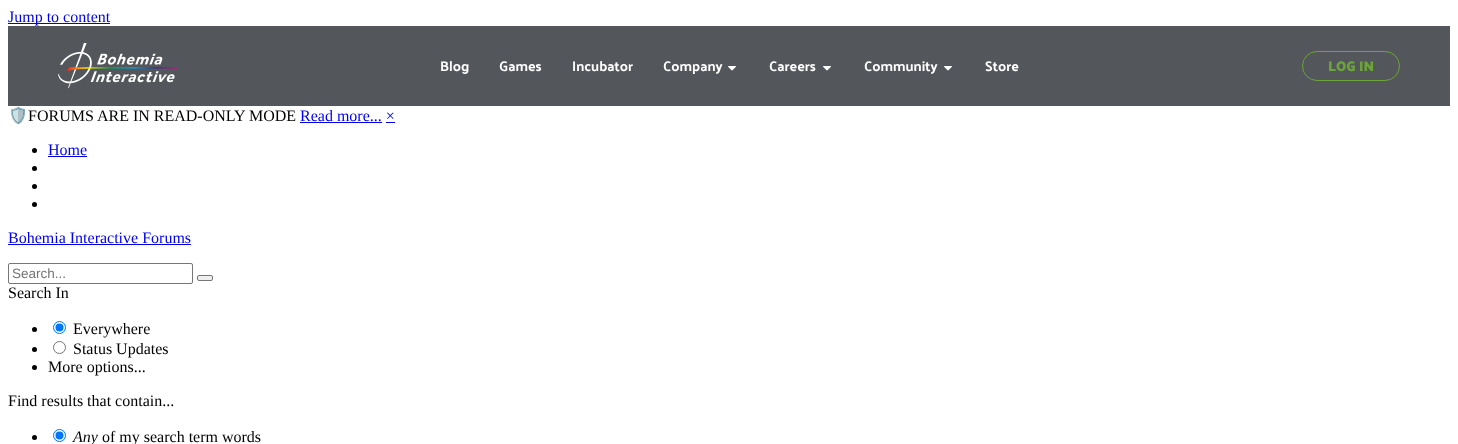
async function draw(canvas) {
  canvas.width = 1458
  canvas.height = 444
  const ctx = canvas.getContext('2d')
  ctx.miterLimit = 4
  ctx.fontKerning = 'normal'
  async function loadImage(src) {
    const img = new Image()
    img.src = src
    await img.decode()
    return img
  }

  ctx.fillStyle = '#fff'
  ctx.fillRect(0, 0, 1458, 444)
  ctx.fillStyle = '#00e'
  ctx.fillRect(8, 23, 102, 1)
  ctx.font = '16px Liberation Serif'
  ctx.fillText('Jump to content', 8, 22)
  ctx.fillStyle = '#53565a'
  ctx.fillRect(8, 26, 1442, 80)
  ctx.drawImage(await loadImage('image0.png'), 58, 43, 120, 46)
  ctx.font = '14px Palanquin Dark'
  ctx.fillStyle = '#fff'
  ctx.fillText('Blog', 440, 71)
  ctx.fillText('Games', 499, 71)
  ctx.fillText('Incubator', 572, 71)
  ctx.fillText('Company', 663, 71)
  ctx.drawImage(await loadImage('image1.png'), 728, 66, 8, 5)
  ctx.fillText('Careers', 769, 71)
  ctx.drawImage(await loadImage('image1.png'), 823, 66, 8, 5)
  ctx.fillText('Community', 864, 71)
  ctx.drawImage(await loadImage('image1.png'), 944, 66, 8, 5)
  ctx.fillText('Store', 985, 71)
  ctx.beginPath()
  ctx.roundRect(1302.5, 51.5, 97, 29, 14.5)
  ctx.strokeStyle = '#6ba539'
  ctx.stroke()
  ctx.font = 'bold 14px Palanquin Dark'
  ctx.fillStyle = '#6ba539'
  ctx.fillText('LOG IN', 1328, 71)
  ctx.font = '16px Noto Color Emoji'
  ctx.fillStyle = '#000'
  ctx.fillText('🛡️', 8, 121)
  ctx.font = '16px Liberation Serif'
  ctx.fillText('FORUMS ARE IN READ-ONLY MODE', 28, 121)
  ctx.fillStyle = '#00e'
  ctx.fillText('Read more... ×', 300, 121)
  ctx.fillRect(300, 122, 82, 1)
  ctx.fillRect(386, 122, 9, 1)
  ctx.fillStyle = '#000'
  ctx.beginPath()
  ctx.arc(34.5, 150.5, 2.5, 0, 2 * Math.PI)
  ctx.fill()
  ctx.fillStyle = '#00e'
  ctx.fillText('Home', 48, 155)
  ctx.fillRect(48, 156, 39, 1)
  ctx.fillStyle = '#000'
  ctx.beginPath()
  ctx.arc(34.5, 168.5, 2.5, 0, 2 * Math.PI)
  ctx.fill()
  ctx.beginPath()
  ctx.arc(34.5, 186.5, 2.5, 0, 2 * Math.PI)
  ctx.fill()
  ctx.beginPath()
  ctx.arc(34.5, 204.5, 2.5, 0, 2 * Math.PI)
  ctx.fill()
  ctx.fillStyle = '#00e'
  ctx.fillText('Bohemia Interactive Forums', 8, 243)
  ctx.fillRect(8, 244, 183, 1)
  ctx.beginPath()
  ctx.roundRect(8.5, 263.5, 184, 20, 1.5)
  ctx.strokeStyle = '#767676'
  ctx.stroke()
  ctx.font = '13.5px Liberation Sans'
  ctx.fillStyle = '#757575'
  ctx.fillText('Search...', 12, 278)
  ctx.fillStyle = '#efefef'
  ctx.beginPath()
  ctx.roundRect(197.5, 275.5, 15, 5, 1.5)
  ctx.fill()
  ctx.stroke()
  ctx.font = '16px Liberation Serif'
  ctx.fillStyle = '#000'
  ctx.fillText('Search In', 8, 298)
  ctx.beginPath()
  ctx.arc(34.5, 329.5, 2.5, 0, 2 * Math.PI)
  ctx.fill()
  ctx.beginPath()
  ctx.arc(59.5, 327.5, 6, 0, 2 * Math.PI)
  ctx.strokeStyle = '#0075ff'
  ctx.stroke()
  ctx.fillStyle = '#0075ff'
  ctx.beginPath()
  ctx.arc(59.5, 327.5, 4, 0, 2 * Math.PI)
  ctx.fill()
  ctx.fillStyle = '#000'
  ctx.fillText('Everywhere', 73, 334)
  ctx.beginPath()
  ctx.arc(34.5, 349.5, 2.5, 0, 2 * Math.PI)
  ctx.fill()
  ctx.beginPath()
  ctx.arc(59.5, 347.5, 6, 0, 2 * Math.PI)
  ctx.strokeStyle = '#767676'
  ctx.stroke()
  ctx.fillText('Status Updates', 73, 354)
  ctx.beginPath()
  ctx.arc(34.5, 367.5, 2.5, 0, 2 * Math.PI)
  ctx.fill()
  ctx.fillText('More options...', 48, 372)
  ctx.fillText('Find results that contain...', 8, 406)
  ctx.beginPath()
  ctx.arc(34.5, 437.5, 2.5, 0, 2 * Math.PI)
  ctx.fill()
  ctx.beginPath()
  ctx.arc(59.5, 435.5, 6, 0, 2 * Math.PI)
  ctx.strokeStyle = '#0075ff'
  ctx.stroke()
  ctx.fillStyle = '#0075ff'
  ctx.beginPath()
  ctx.arc(59.5, 435.5, 4, 0, 2 * Math.PI)
  ctx.fill()
  ctx.font = 'italic 16px Liberation Serif'
  ctx.fillStyle = '#000'
  ctx.fillText('Any', 73, 442)
  ctx.font = '16px Liberation Serif'
  ctx.fillText('of my search term words', 102, 442)
}

draw(document.querySelector('canvas'))
